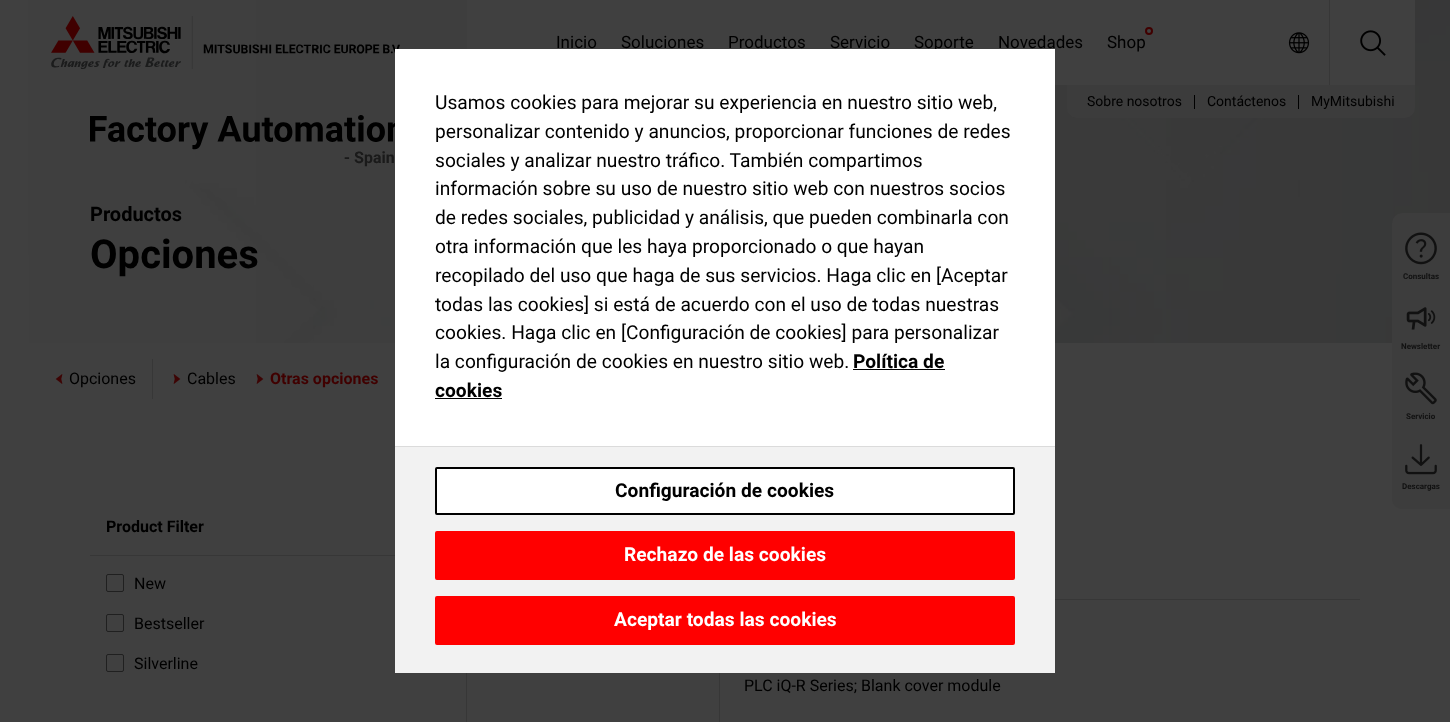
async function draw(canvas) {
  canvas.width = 1450
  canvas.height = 722
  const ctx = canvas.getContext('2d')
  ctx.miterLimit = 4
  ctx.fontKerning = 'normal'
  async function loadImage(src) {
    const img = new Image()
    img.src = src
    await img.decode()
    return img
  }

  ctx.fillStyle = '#404040'
  ctx.fillRect(0, 0, 1450, 722)
  ctx.drawImage(await loadImage('image3.png'), 0, 0, 1450, 343)
  ctx.fillRect(467, 0, 948, 85)
  ctx.drawImage(await loadImage('image0.png'), 51, 16, 349, 53)
  ctx.font = '17px Roboto'
  ctx.fillStyle = '#000'
  ctx.fillText('Inicio', 556, 48)
  ctx.fillText('Soluciones', 621, 48)
  ctx.fillText('Productos', 728, 48)
  ctx.fillText('Servicio', 830, 48)
  ctx.fillText('Soporte', 914, 48)
  ctx.fillText('Novedades', 998, 48)
  ctx.beginPath()
  ctx.arc(1149, 31, 3, 0, 2 * Math.PI)
  ctx.strokeStyle = '#400000'
  ctx.lineWidth = 2
  ctx.stroke()
  ctx.fillText('Shop', 1107, 48)
  ctx.drawImage(await loadImage('image1.png'), 1288, 32, 22, 22)
  ctx.fillStyle = '#373737'
  ctx.fillRect(1329, 0, 1, 85)
  ctx.drawImage(await loadImage('image2.png'), 1360, 30, 26, 26)
  ctx.fillStyle = '#3d3d3dcc'
  ctx.beginPath()
  ctx.roundRect(1067, 85, 348, 33, [0, 0, 10, 10])
  ctx.fill()
  ctx.font = '14px Roboto'
  ctx.fillStyle = '#000'
  ctx.fillText('Sobre nosotros', 1087, 106)
  ctx.fillRect(1194, 95, 1, 14)
  ctx.fillText('Contáctenos', 1207, 106)
  ctx.fillRect(1298, 95, 1, 14)
  ctx.fillText('MyMitsubishi', 1311, 106)
  ctx.drawImage(await loadImage('image4.png'), 90, 115, 305, 52)
  ctx.font = 'bold 20px Roboto'
  ctx.fillText('Productos', 90, 221)
  ctx.font = 'bold 40px Roboto'
  ctx.fillText('Opciones', 90, 268)
  ctx.fillStyle = '#3d3d3df2'
  ctx.beginPath()
  ctx.roundRect(1392, 213, 58, 296, [10, 0, 0, 10])
  ctx.fill()
  ctx.drawImage(await loadImage('image5.png'), 1405, 232, 32, 33)
  ctx.font = 'bold 8px Roboto'
  ctx.fillStyle = '#111'
  ctx.fillText('Consultas', 1403, 279)
  ctx.drawImage(await loadImage('image6.png'), 1406, 307, 30, 23)
  ctx.fillText('Newsletter', 1401, 349)
  ctx.drawImage(await loadImage('image7.png'), 1405, 372, 32, 33)
  ctx.fillText('Servicio', 1406, 419)
  ctx.drawImage(await loadImage('image8.png'), 1405, 444, 32, 31)
  ctx.fillText('Descargas', 1402, 489)
  ctx.fillStyle = '#373737'
  ctx.fillRect(90, 555, 305, 1)
  ctx.font = 'bold 16px Roboto'
  ctx.fillStyle = '#000'
  ctx.fillText('Product Filter', 106, 532)
  ctx.beginPath()
  ctx.roundRect(106.5, 574.5, 17, 17, 1.5)
  ctx.strokeStyle = '#202020'
  ctx.lineWidth = 1
  ctx.stroke()
  ctx.font = '16px Roboto'
  ctx.fillText('New', 134, 589)
  ctx.beginPath()
  ctx.roundRect(106.5, 614.5, 17, 17, 1.5)
  ctx.stroke()
  ctx.fillText('Bestseller', 134, 629)
  ctx.beginPath()
  ctx.roundRect(106.5, 654.5, 17, 17, 1.5)
  ctx.stroke()
  ctx.fillText('Silverline', 134, 669)
  ctx.fillStyle = '#373737'
  ctx.fillRect(1055, 599, 305, 1)
  ctx.strokeStyle = '#373737'
  ctx.strokeRect(466.5, 616.5, 253, 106)
  ctx.fillStyle = '#000'
  ctx.fillText('PLC iQ-R Series; Blank cover module', 744, 691)
  ctx.fillStyle = '#373737'
  ctx.fillRect(152, 359, 1, 40)
  ctx.drawImage(await loadImage('image9.png'), 55, 374, 8, 10)
  ctx.fillStyle = '#000'
  ctx.fillText('Opciones', 69, 384)
  ctx.drawImage(await loadImage('image10.png'), 173, 374, 8, 10)
  ctx.fillText('Cables', 187, 384)
  ctx.drawImage(await loadImage('image10.png'), 256, 374, 8, 10)
  ctx.font = 'bold 16px Roboto'
  ctx.fillStyle = '#400000'
  ctx.fillText('Otras opciones', 270, 384)
  ctx.fillStyle = '#fff'
  ctx.fillRect(395, 49, 660, 397)
  ctx.font = '19.2px Roboto'
  ctx.fillStyle = '#000'
  ctx.fillText('Usamos cookies para mejorar su experiencia en nuestro sitio web,', 435, 109)
  ctx.fillText('personalizar contenido y anuncios, proporcionar funciones de redes', 435, 138)
  ctx.fillText('sociales y analizar nuestro tráfico. También compartimos', 435, 167)
  ctx.fillText('información sobre su uso de nuestro sitio web con nuestros socios', 435, 195)
  ctx.fillText('de redes sociales, publicidad y análisis, que pueden combinarla con', 435, 224)
  ctx.fillText('otra información que les haya proporcionado o que hayan', 435, 253)
  ctx.fillText('recopilado del uso que haga de sus servicios. Haga clic en [Aceptar', 435, 282)
  ctx.fillText('todas las cookies] si está de acuerdo con el uso de todas nuestras', 435, 311)
  ctx.fillText('cookies. Haga clic en [Configuración de cookies] para personalizar', 435, 339)
  ctx.fillText('la configuración de cookies en nuestro sitio web.', 435, 368)
  ctx.font = 'bold 19.2px Roboto'
  ctx.fillText('Política de', 853, 368)
  ctx.fillRect(853, 369, 92, 1)
  ctx.fillText('cookies', 435, 397)
  ctx.fillRect(435, 398, 67, 1)
  ctx.fillStyle = '#f2f2f2'
  ctx.fillRect(395, 447, 660, 226)
  ctx.fillStyle = '#dbdbdb'
  ctx.fillRect(395, 446, 660, 1)
  ctx.fillStyle = '#fff'
  ctx.beginPath()
  ctx.roundRect(436, 468, 578, 46, 1)
  ctx.fill()
  ctx.strokeStyle = '#000'
  ctx.lineWidth = 2
  ctx.stroke()
  ctx.fillStyle = '#000'
  ctx.fillText('Configuración de cookies', 615, 497)
  ctx.fillStyle = '#f00'
  ctx.beginPath()
  ctx.roundRect(436, 532, 578, 47, 1)
  ctx.fill()
  ctx.strokeStyle = '#f00'
  ctx.stroke()
  ctx.fillStyle = '#fff'
  ctx.fillText('Rechazo de las cookies', 624, 561)
  ctx.fillStyle = '#f00'
  ctx.beginPath()
  ctx.roundRect(436, 597, 578, 47, 1)
  ctx.fill()
  ctx.stroke()
  ctx.fillStyle = '#fff'
  ctx.fillText('Aceptar todas las cookies', 614, 626)
}

draw(document.querySelector('canvas'))
